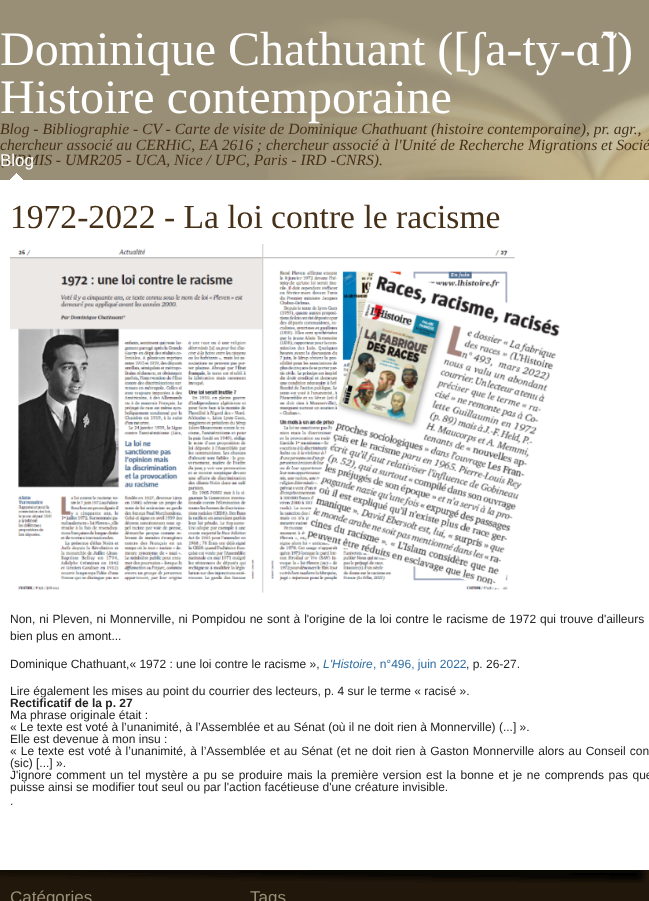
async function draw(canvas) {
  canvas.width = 649
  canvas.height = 901
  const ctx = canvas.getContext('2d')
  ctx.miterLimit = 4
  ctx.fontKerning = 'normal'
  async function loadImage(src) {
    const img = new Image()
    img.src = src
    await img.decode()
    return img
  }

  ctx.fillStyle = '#998f76'
  ctx.fillRect(0, 0, 649, 901)
  ctx.drawImage(await loadImage('image0.png'), 268, 18, 381, 162)
  ctx.font = '48px Liberation Serif'
  ctx.fillStyle = '#fff'
  ctx.fillText('Dominique Chathuant ([ʃa-ty-ɑ̃])', 0, 65)
  ctx.fillText('Histoire contemporaine', 0, 113)
  ctx.font = 'italic 15.6px Liberation Serif'
  ctx.fillStyle = '#463017'
  ctx.fillText('Blog - Bibliographie - CV - Carte de visite de Dominique Chathuant (histoire contemporaine), pr. agr.,', 0, 134)
  ctx.fillText('chercheur associé au CERHiC, EA 2616 ; chercheur associé à l\'Unité de Recherche Migrations et Socié', 0, 150)
  ctx.fillText('(URMIS - UMR205 - UCA, Nice / UPC, Paris - IRD -CNRS).', 0, 165)
  ctx.drawImage(await loadImage('image1.png'), 10, 173, 13, 7)
  ctx.font = '17px Liberation Sans'
  ctx.fillStyle = '#fff'
  ctx.fillText('Blog', 0, 166)
  ctx.fillRect(0, 180, 649, 690)
  ctx.font = '33.6px Liberation Serif'
  ctx.fillStyle = '#463017'
  ctx.fillText('1972-2022 - La loi contre le racisme', 10, 228)
  ctx.drawImage(await loadImage('image2.png'), 10, 244, 550, 349)
  ctx.wordSpacing = '0.6px'
  ctx.font = '12px Liberation Sans'
  ctx.fillStyle = '#222'
  ctx.fillText('Non, ni Pleven, ni Monnerville, ni Pompidou ne sont à l\'origine de la loi contre le racisme de 1972 qui trouve d\'ailleurs', 10, 623)
  ctx.wordSpacing = '0px'
  ctx.fillText('bien plus en amont...', 10, 640)
  ctx.fillText('Dominique Chathuant,« 1972 : une loi contre le racisme »,', 10, 668)
  ctx.font = 'italic 12px Liberation Sans'
  ctx.fillStyle = '#2e6da3'
  ctx.fillText('L\'Histoire', 323, 668)
  ctx.font = '12px Liberation Sans'
  ctx.fillText(', n°496, juin 2022', 373, 668)
  ctx.fillStyle = '#222'
  ctx.fillText(', p. 26-27.', 466, 668)
  ctx.fillText('Lire également les mises au point du courrier des lecteurs, p. 4 sur le terme « racisé ».', 10, 695)
  ctx.font = 'bold 12px Liberation Sans'
  ctx.fillText('Rectificatif de la p. 27', 10, 707)
  ctx.font = '12px Liberation Sans'
  ctx.fillText('Ma phrase originale était :', 10, 719)
  ctx.fillText('« Le texte est voté à l’unanimité, à l’Assemblée et au Sénat (où il ne doit rien à Monnerville) (...] ».', 10, 731)
  ctx.fillText('Elle est devenue à mon insu :', 10, 743)
  ctx.wordSpacing = '0.7px'
  ctx.fillText('« Le texte est voté à l’unanimité, à l’Assemblée et au Sénat (et ne doit rien à Gaston Monnerville alors au Conseil con', 10, 755)
  ctx.wordSpacing = '0px'
  ctx.fillText('(sic) [...] ».', 10, 767)
  ctx.wordSpacing = '1.2px'
  ctx.fillText('J\'ignore comment un tel mystère a pu se produire mais la première version est la bonne et je ne comprends pas que', 10, 779)
  ctx.wordSpacing = '0px'
  ctx.fillText('puisse ainsi se modifier tout seul ou par l\'action facétieuse d\'une créature invisible.', 10, 791)
  ctx.fillText('.', 10, 805)
  ctx.fillStyle = '#21170b'
  ctx.fillRect(0, 870, 649, 31)
  ctx.drawImage(await loadImage('image3.png'), 0, 870, 647, 13)
  ctx.font = '17px Liberation Sans'
  ctx.fillStyle = '#998f76'
  ctx.fillText('Catégories', 10, 903)
  ctx.fillText('Tags', 250, 903)
}

draw(document.querySelector('canvas'))
